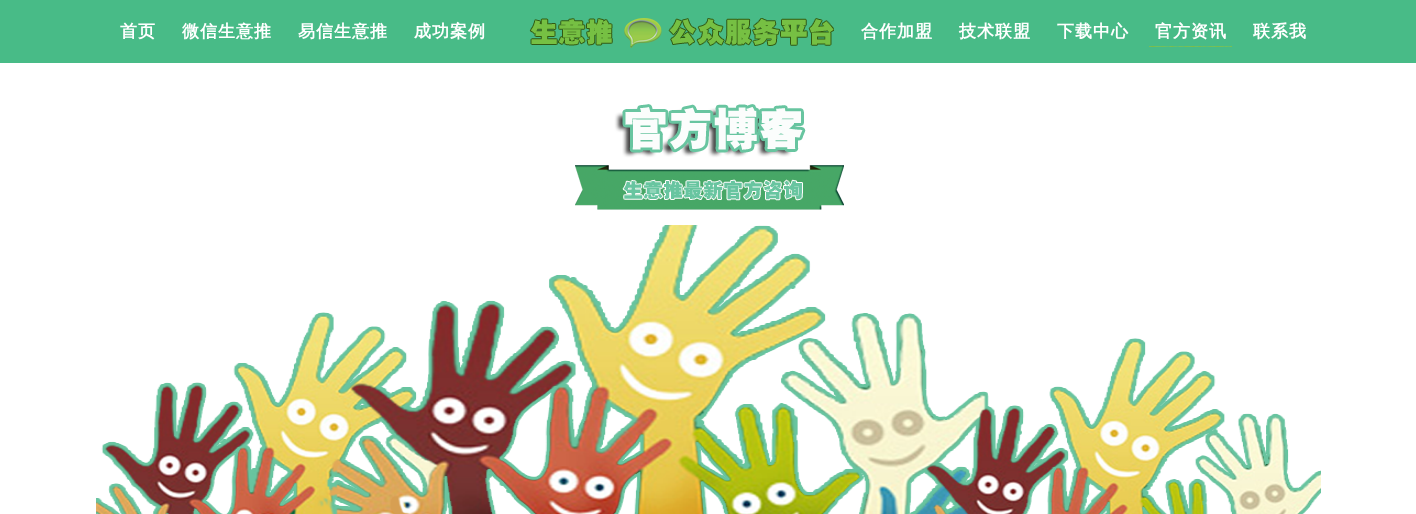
async function draw(canvas) {
  canvas.width = 1416
  canvas.height = 514
  const ctx = canvas.getContext('2d')
  ctx.miterLimit = 4
  ctx.fontKerning = 'normal'
  async function loadImage(src) {
    const img = new Image()
    img.src = src
    await img.decode()
    return img
  }

  ctx.fillStyle = '#fff'
  ctx.fillRect(0, 0, 1416, 514)
  ctx.fillStyle = '#48bb87'
  ctx.fillRect(0, 0, 1416, 63)
  ctx.letterSpacing = '1px'
  ctx.font = 'bold 17px WenQuanYi Zen Hei'
  ctx.fillStyle = '#fff'
  ctx.fillText('首页', 120, 37)
  ctx.fillText('微信生意推', 182, 37)
  ctx.fillText('易信生意推', 298, 37)
  ctx.fillText('成功案例', 414, 37)
  ctx.drawImage(await loadImage('image0.png'), 529, 18, 305, 30)
  ctx.fillText('合作加盟', 861, 37)
  ctx.fillText('技术联盟', 959, 37)
  ctx.fillText('下载中心', 1057, 37)
  ctx.fillText('官方资讯', 1155, 37)
  ctx.drawImage(await loadImage('image1.png'), 1149, 46, 83, 1)
  ctx.fillText('联系我', 1253, 37)
  ctx.drawImage(await loadImage('image2.png'), 575, 104, 269, 106)
  ctx.drawImage(await loadImage('image3.png'), 96, 225, 1225, 289)
}

draw(document.querySelector('canvas'))
